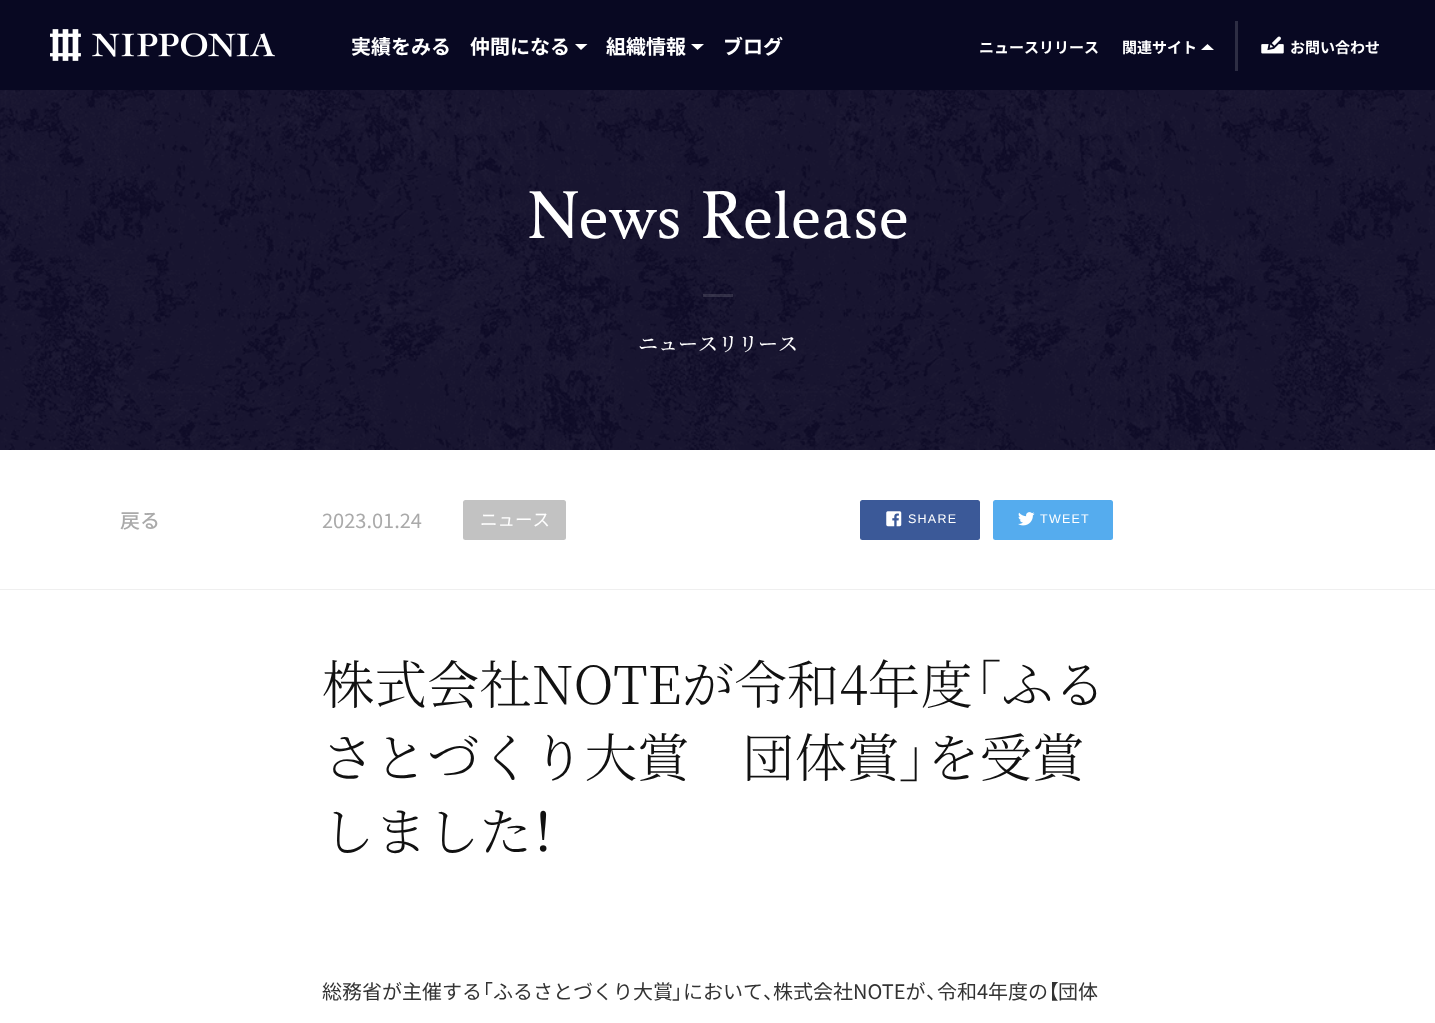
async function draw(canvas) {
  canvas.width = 1435
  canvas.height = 1023
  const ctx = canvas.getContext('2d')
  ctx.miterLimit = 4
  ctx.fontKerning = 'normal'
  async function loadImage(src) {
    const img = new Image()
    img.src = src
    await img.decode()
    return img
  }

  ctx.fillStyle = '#fff'
  ctx.fillRect(0, 0, 1435, 1023)
  ctx.fillStyle = '#080822'
  ctx.fillRect(0, 0, 1435, 90)
  ctx.drawImage(await loadImage('image0.png'), 50, 29, 225, 32)
  ctx.font = 'bold 20px Noto Sans JP'
  ctx.fillStyle = '#fff'
  ctx.fillText('実績をみる', 351, 54)
  ctx.fillText('仲間になる', 470, 54)
  ctx.beginPath()
  ctx.moveTo(575, 44)
  ctx.lineTo(587.5, 44)
  ctx.lineTo(581, 50)
  ctx.closePath()
  ctx.fill()
  ctx.fillText('組織情報', 606, 54)
  ctx.beginPath()
  ctx.moveTo(691, 44)
  ctx.lineTo(704, 44)
  ctx.lineTo(697.5, 50)
  ctx.closePath()
  ctx.fill()
  ctx.fillText('ブログ', 723, 54)
  ctx.font = 'bold 15px Noto Sans JP'
  ctx.fillText('ニュースリリース', 979, 53)
  ctx.fillText('関連サイト', 1122, 53)
  ctx.beginPath()
  ctx.moveTo(1214, 50)
  ctx.lineTo(1201, 50)
  ctx.lineTo(1207.5, 44)
  ctx.closePath()
  ctx.fill()
  ctx.fillStyle = '#2d2d43'
  ctx.fillRect(1235, 21, 3, 50)
  ctx.drawImage(await loadImage('image1.png'), 1261, 36, 23, 18)
  ctx.fillStyle = '#fff'
  ctx.fillText('お問い合わせ', 1290, 53)
  ctx.drawImage(await loadImage('image2.png'), 0, 90, 1435, 360)
  ctx.font = '70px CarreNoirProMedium'
  ctx.fillText('News Release', 526, 238)
  ctx.fillStyle = '#e6e6e626'
  ctx.fillRect(703, 294, 30, 3)
  ctx.font = '500 20px Noto Serif JP'
  ctx.fillStyle = '#fff'
  ctx.fillText('ニュースリリース', 638, 351)
  ctx.fillStyle = '#efefef'
  ctx.fillRect(0, 589, 1435, 1)
  ctx.font = '500 20px Noto Sans JP'
  ctx.fillStyle = '#aaa'
  ctx.fillText('戻る', 120, 528)
  ctx.font = '20px Noto Sans JP'
  ctx.fillText('2023.01.24', 322, 528)
  ctx.fillStyle = '#c2c2c2'
  ctx.beginPath()
  ctx.roundRect(463, 500, 103, 40, 2.5)
  ctx.fill()
  ctx.font = '17.5px Noto Sans JP'
  ctx.fillStyle = '#fff'
  ctx.fillText('ニュース', 480, 526)
  ctx.fillStyle = '#3b5998'
  ctx.beginPath()
  ctx.roundRect(860, 500, 120, 40, 2.5)
  ctx.fill()
  ctx.drawImage(await loadImage('image3.png'), 886, 511, 16, 16)
  ctx.letterSpacing = '1.25px'
  ctx.font = '12.5px Liberation Sans'
  ctx.fillStyle = '#fff'
  ctx.fillText('SHARE', 908, 523)
  ctx.fillStyle = '#55acee'
  ctx.beginPath()
  ctx.roundRect(993, 500, 120, 40, 2.5)
  ctx.fill()
  ctx.drawImage(await loadImage('image4.png'), 1018, 512, 17, 14)
  ctx.fillStyle = '#fff'
  ctx.fillText('TWEET', 1040, 523)
  ctx.letterSpacing = '0px'
  ctx.font = '300 52.5px Noto Serif JP'
  ctx.fillStyle = '#111'
  ctx.fillText('株式会社NOTEが令和4年度', 322, 704)
  ctx.font = '52.5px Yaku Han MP'
  ctx.fillText('「', 973, 704)
  ctx.font = '300 52.5px Noto Serif JP'
  ctx.fillText('ふる', 1001, 704)
  ctx.fillText('さとづくり大賞　団体賞', 322, 777)
  ctx.font = '52.5px Yaku Han MP'
  ctx.fillText('」', 899, 777)
  ctx.font = '300 52.5px Noto Serif JP'
  ctx.fillText('を受賞', 927, 777)
  ctx.fillText('しました', 322, 851)
  ctx.font = '52.5px Yaku Han MP'
  ctx.fillText('！', 532, 851)
  ctx.font = '20px Noto Sans JP'
  ctx.fillStyle = '#333'
  ctx.fillText('総務省が主催する', 322, 999)
  ctx.font = '20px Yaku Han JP'
  ctx.fillText('「', 482, 999)
  ctx.font = '20px Noto Sans JP'
  ctx.fillText('ふるさとづくり大賞', 493, 999)
  ctx.font = '20px Yaku Han JP'
  ctx.fillText('」', 672, 999)
  ctx.font = '20px Noto Sans JP'
  ctx.fillText('において', 683, 999)
  ctx.font = '20px Yaku Han JP'
  ctx.fillText('、', 763, 999)
  ctx.font = '20px Noto Sans JP'
  ctx.fillText('株式会社NOTEが', 773, 999)
  ctx.font = '20px Yaku Han JP'
  ctx.fillText('、', 926, 999)
  ctx.font = '20px Noto Sans JP'
  ctx.fillText('令和4年度の', 937, 999)
  ctx.font = '20px Yaku Han JP'
  ctx.fillText('【', 1048, 999)
  ctx.font = '20px Noto Sans JP'
  ctx.fillText('団体', 1058, 999)
}

draw(document.querySelector('canvas'))
